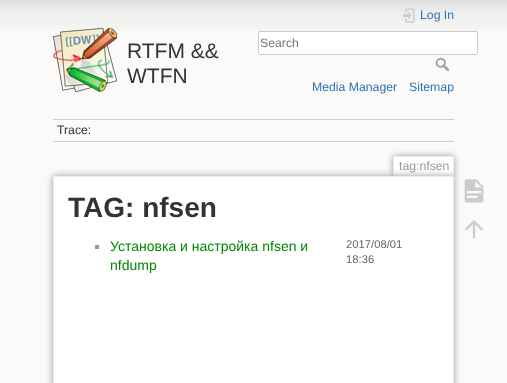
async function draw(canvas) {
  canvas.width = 507
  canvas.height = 383
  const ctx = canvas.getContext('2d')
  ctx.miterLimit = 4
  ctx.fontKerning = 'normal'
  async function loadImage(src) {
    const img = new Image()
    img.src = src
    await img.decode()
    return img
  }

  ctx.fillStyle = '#fbfaf9'
  ctx.fillRect(0, 0, 507, 383)
  ctx.drawImage(await loadImage('image0.png'), 0, 0, 507, 31)
  ctx.drawImage(await loadImage('image1.png'), 53, 28, 64, 64)
  ctx.font = '21px Liberation Sans'
  ctx.fillStyle = '#333'
  ctx.fillText('RTFM &&', 127, 58)
  ctx.fillText('WTFN', 127, 83)
  ctx.drawImage(await loadImage('image2.png'), 403, 8, 12, 15)
  ctx.font = '12.25px Liberation Sans'
  ctx.fillStyle = '#2b73b7'
  ctx.fillText('Log In', 420, 19)
  ctx.fillStyle = '#fff'
  ctx.beginPath()
  ctx.roundRect(258.5, 31.5, 219, 23, 1.5)
  ctx.fill()
  ctx.strokeStyle = '#ccc'
  ctx.stroke()
  ctx.fillStyle = '#757575'
  ctx.fillText('Search', 260, 47)
  ctx.drawImage(await loadImage('image3.png'), 435, 57, 14, 14)
  ctx.fillStyle = '#2b73b7'
  ctx.fillText('Media Manager', 312, 91)
  ctx.fillText('Sitemap', 409, 91)
  ctx.fillStyle = '#ccc'
  ctx.fillRect(53, 119, 401, 1)
  ctx.fillStyle = '#fff'
  ctx.fillRect(53, 142, 401, 1)
  ctx.fillRect(53, 120, 401, 1)
  ctx.fillStyle = '#ccc'
  ctx.fillRect(53, 141, 401, 1)
  ctx.fillStyle = '#333'
  ctx.fillText('Trace:', 57, 134)
  ctx.save()
  ctx.beginPath()
  ctx.rect(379, 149, 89, 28)
  ctx.clip()
  ctx.fillStyle = '#999'
  ctx.filter = 'blur(3px)'
  ctx.beginPath()
  ctx.roundRect(393, 156, 61, 21, 2)
  ctx.fill()
  ctx.filter = 'none'
  ctx.restore()
  ctx.fillStyle = '#fff'
  ctx.beginPath()
  ctx.roundRect(394, 157, 59, 20, [1, 1, 0, 0])
  ctx.fill()
  ctx.fillStyle = '#eee'
  ctx.fillRect(394, 156, 59, 1)
  ctx.fillRect(453, 157, 1, 20)
  ctx.fillRect(393, 157, 1, 20)
  ctx.fillStyle = '#999'
  ctx.fillText('tag:nfsen', 399, 170)
  ctx.filter = 'blur(3.5px)'
  ctx.beginPath()
  ctx.roundRect(53, 176, 401, 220, 2)
  ctx.fill()
  ctx.filter = 'none'
  ctx.fillStyle = '#fff'
  ctx.beginPath()
  ctx.roundRect(53.5, 176.5, 400, 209, 1.5)
  ctx.fill()
  ctx.strokeStyle = '#eee'
  ctx.stroke()
  ctx.font = 'bold 28px Liberation Sans'
  ctx.fillStyle = '#333'
  ctx.fillText('TAG: nfsen', 68, 217)
  ctx.fillStyle = '#999'
  ctx.fillRect(95, 245, 4, 4)
  ctx.font = '14px Liberation Sans'
  ctx.fillStyle = '#080'
  ctx.fillText('Установка и настройка nfsen и', 110, 251)
  ctx.fillText('nfdump', 110, 270)
  ctx.font = '11.25px Liberation Sans'
  ctx.fillStyle = '#666'
  ctx.fillText('2017/08/01', 346, 248)
  ctx.fillText('18:36', 346, 263)
  ctx.drawImage(await loadImage('image4.png'), 464, 179, 20, 24)
  ctx.drawImage(await loadImage('image5.png'), 465, 220, 18, 19)
}

draw(document.querySelector('canvas'))
